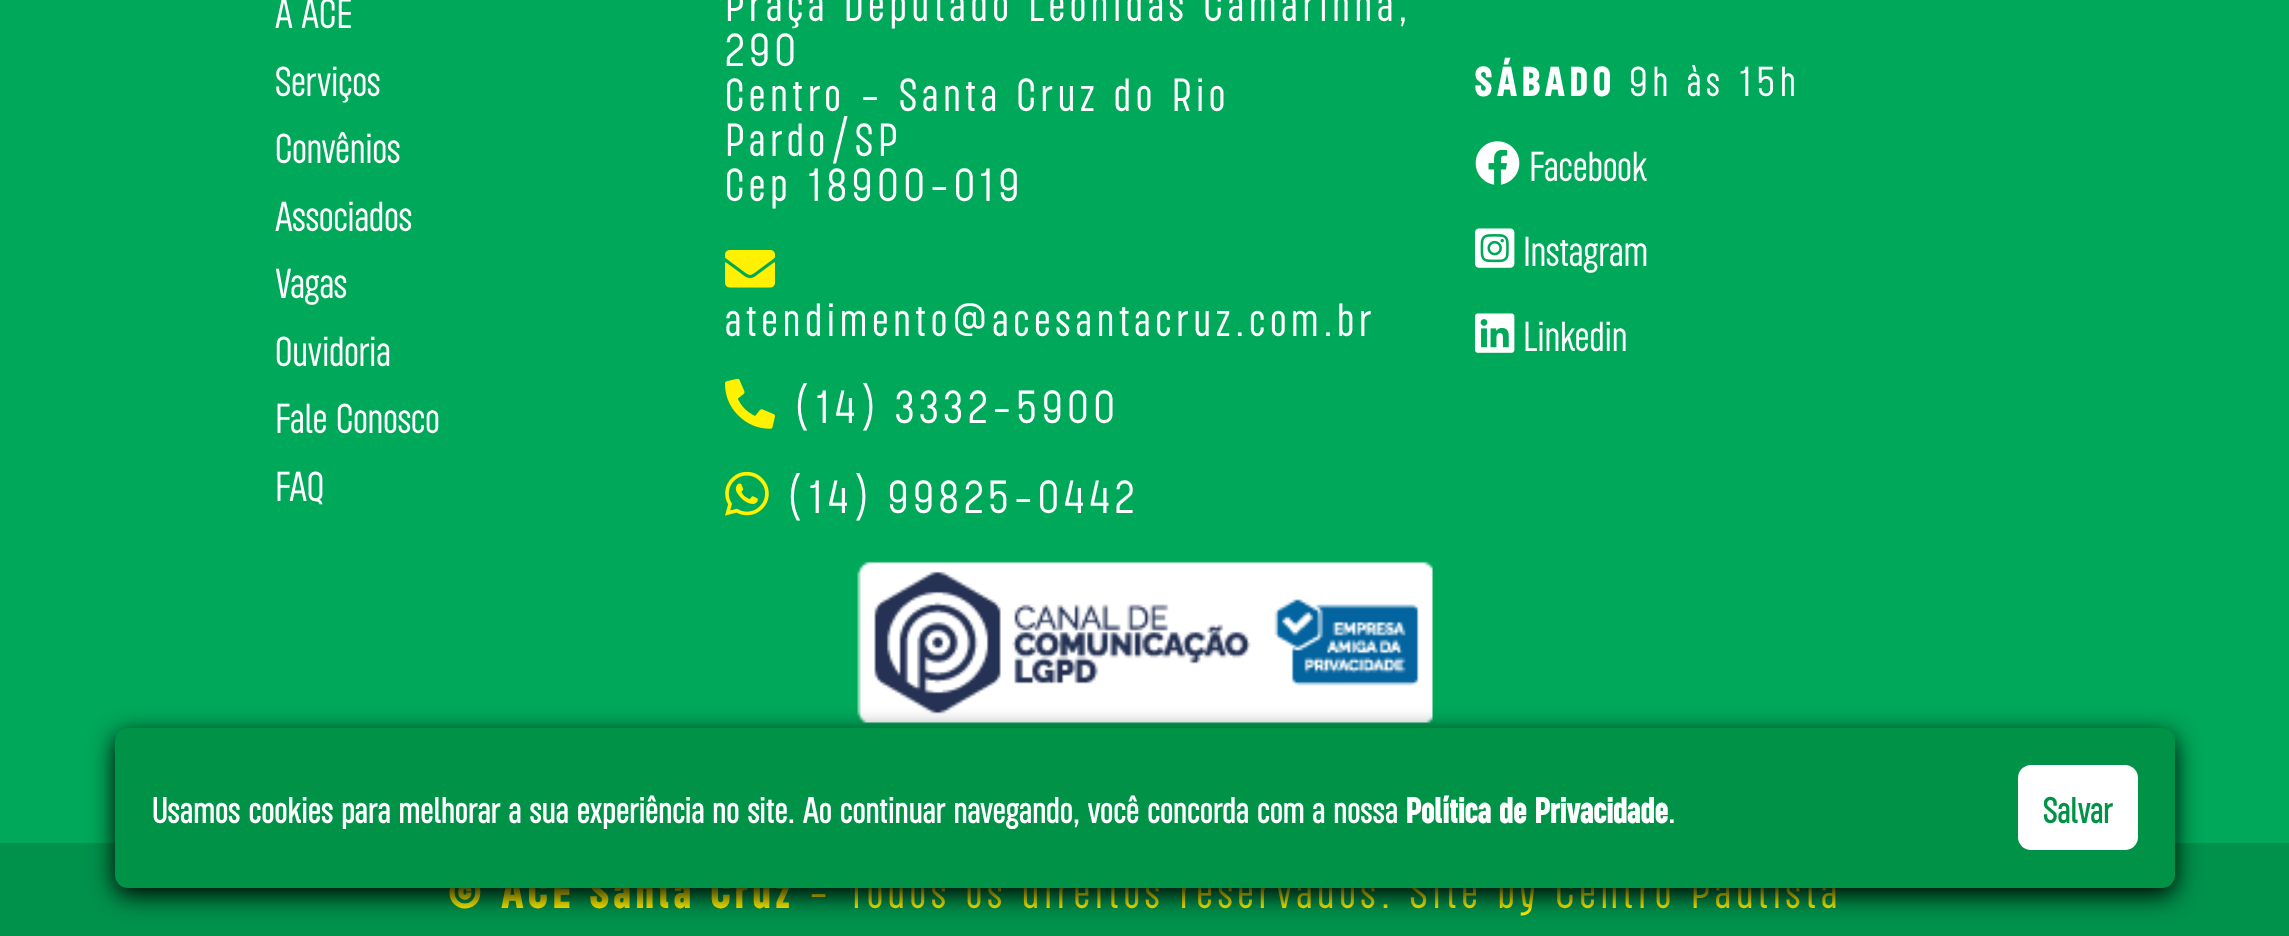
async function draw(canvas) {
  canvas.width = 2289
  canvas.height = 936
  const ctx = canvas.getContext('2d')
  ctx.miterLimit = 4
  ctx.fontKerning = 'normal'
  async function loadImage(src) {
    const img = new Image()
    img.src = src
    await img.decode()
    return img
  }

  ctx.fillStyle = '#00a859'
  ctx.fillRect(0, 0, 2289, 936)
  ctx.font = '300 45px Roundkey'
  ctx.fillStyle = '#fff'
  ctx.fillText('A ACE', 275, 28)
  ctx.fillText('Serviços', 275, 96)
  ctx.fillText('Convênios', 275, 163)
  ctx.fillText('Associados', 275, 231)
  ctx.fillText('Vagas', 275, 298)
  ctx.fillText('Ouvidoria', 275, 366)
  ctx.fillText('Fale Conosco', 275, 433)
  ctx.fillText('FAQ', 275, 501)
  ctx.letterSpacing = '5px'
  ctx.font = '300 50px Roundkey'
  ctx.fillText('Praça Deputado Leônidas Camarinha,', 725, 21)
  ctx.fillText('290', 725, 66)
  ctx.fillText('Centro - Santa Cruz do Rio', 725, 111)
  ctx.fillText('Pardo/SP', 725, 156)
  ctx.fillText('Cep 18900-019', 725, 201)
  ctx.drawImage(await loadImage('image0.png'), 725, 250, 50, 38)
  ctx.fillText('atendimento@acesantacruz.com.br', 725, 336)
  ctx.drawImage(await loadImage('image1.png'), 725, 378, 50, 51)
  ctx.fillText('(14) 3332-5900', 795, 423)
  ctx.drawImage(await loadImage('image2.png'), 725, 471, 44, 45)
  ctx.fillText('(14) 99825-0442', 788, 513)
  ctx.font = 'bold 45px Roundkey'
  ctx.fillText('SÁBADO', 1475, 96)
  ctx.font = '300 45px Roundkey'
  ctx.fillText('9h às 15h', 1629, 96)
  ctx.drawImage(await loadImage('image3.png'), 1475, 141, 45, 44)
  ctx.letterSpacing = '0px'
  ctx.fillText('Facebook', 1529, 181)
  ctx.drawImage(await loadImage('image4.png'), 1475, 228, 40, 40)
  ctx.fillText('Instagram', 1523, 266)
  ctx.drawImage(await loadImage('image5.png'), 1475, 313, 40, 40)
  ctx.fillText('Linkedin', 1523, 351)
  ctx.drawImage(await loadImage('image6.png'), 857, 561, 576, 162)
  ctx.fillStyle = '#00914b'
  ctx.fillRect(0, 843, 2289, 93)
  ctx.letterSpacing = '5px'
  ctx.font = 'bold 50px Roundkey'
  ctx.fillStyle = '#fff100'
  ctx.fillText('© ACE Santa Cruz', 448, 908)
  ctx.font = '300 50px Roundkey'
  ctx.fillText('- Todos os direitos reservados. Site by Centro Paulista', 809, 908)
  ctx.fillStyle = '#000'
  ctx.filter = 'blur(12.5px)'
  ctx.beginPath()
  ctx.roundRect(115, 735, 2060, 160, 13)
  ctx.fill()
  ctx.filter = 'none'
  ctx.fillStyle = '#009247'
  ctx.beginPath()
  ctx.roundRect(115, 728, 2060, 160, 13)
  ctx.fill()
  ctx.letterSpacing = '0px'
  ctx.font = '40px Roundkey'
  ctx.fillStyle = '#fff'
  ctx.fillText('Usamos cookies para melhorar a sua experiência no site. Ao continuar navegando, você concorda com a nossa', 152, 823)
  ctx.font = 'bold 40px Roundkey'
  ctx.fillText('Política de Privacidade', 1406, 823)
  ctx.font = '40px Roundkey'
  ctx.fillText('.', 1668, 823)
  ctx.beginPath()
  ctx.roundRect(2018, 765, 120, 85, 13)
  ctx.fill()
  ctx.fillStyle = '#009247'
  ctx.fillText('Salvar', 2043, 823)
}

draw(document.querySelector('canvas'))
